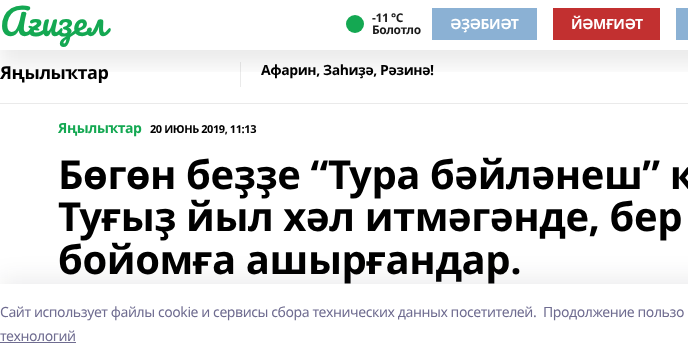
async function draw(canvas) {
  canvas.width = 688
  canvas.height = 364
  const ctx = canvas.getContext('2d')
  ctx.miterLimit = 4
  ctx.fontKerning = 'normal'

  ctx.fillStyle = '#fff'
  ctx.fillRect(0, 0, 688, 364)
  ctx.fillStyle = '#eaeaea'
  ctx.fillRect(240, 62, 1, 25)
  ctx.save()
  ctx.beginPath()
  ctx.rect(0, 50, 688, 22)
  ctx.clip()
  ctx.fillStyle = '#00000014'
  ctx.filter = 'blur(10px)'
  ctx.beginPath()
  ctx.rect(0, 15, 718, 50)
  ctx.fill()
  ctx.filter = 'none'
  ctx.restore()
  ctx.letterSpacing = '-0.42px'
  ctx.font = '36px Pacifico'
  ctx.fillStyle = '#14a852'
  ctx.fillText('Ағиҙел', 0, 36)
  ctx.beginPath()
  ctx.arc(355, 24, 9, 0, 2 * Math.PI)
  ctx.fill()
  ctx.font = 'bold 12px Noto Sans'
  ctx.fillStyle = '#1a1a1a'
  ctx.fillText('-11 °С', 372, 22)
  ctx.fillText('Болотло', 372, 34)
  ctx.fillStyle = '#8bb1d4'
  ctx.fillRect(432, 8, 105, 32)
  ctx.font = 'bold 14px Noto Sans'
  ctx.fillStyle = '#fff'
  ctx.fillText('ӘҘӘБИӘТ', 450, 29)
  ctx.fillStyle = '#c23030'
  ctx.fillRect(553, 8, 107, 32)
  ctx.fillStyle = '#fff'
  ctx.fillText('ЙӘМҒИӘТ', 571, 29)
  ctx.fillStyle = '#8bb1d4'
  ctx.fillRect(676, 8, 12, 32)
  ctx.fillStyle = '#eaeaea'
  ctx.fillRect(0, 103, 688, 1)
  ctx.save()
  ctx.beginPath()
  ctx.rect(0, 62, 240, 21)
  ctx.clip()
  ctx.font = 'bold 18px Noto Sans'
  ctx.fillStyle = '#000'
  ctx.fillText('Яңылыҡтар', 0, 79)
  ctx.restore()
  ctx.fillStyle = '#000'
  ctx.fillText('Афарин, Заһиҙә, Рәзинә!', 261, 75)
  ctx.fillStyle = '#14a852'
  ctx.fillText('Яңылыҡтар', 58, 133)
  ctx.font = 'bold 11px Noto Sans'
  ctx.fillStyle = '#000'
  ctx.fillText('20 ИЮНЬ 2019, 11:13', 150, 133)
  ctx.font = 'bold 40px Noto Sans'
  ctx.fillText('Бөгөн беҙҙе “Тура бәйләнеш” к', 58, 189)
  ctx.fillText('Туғыҙ йыл хәл итмәгәнде, бер', 58, 231)
  ctx.fillText('бойомға ашырғандар.', 58, 274)
  ctx.fillStyle = '#14142b14'
  ctx.filter = 'blur(11.5px)'
  ctx.beginPath()
  ctx.rect(0, 278, 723, 80)
  ctx.fill()
  ctx.filter = 'none'
  ctx.fillStyle = '#fff'
  ctx.fillRect(0, 284, 688, 80)
  ctx.font = '14px Noto Sans'
  ctx.fillStyle = '#6f6c90'
  ctx.fillText('Cайт использует файлы cookie и сервисы сбора технических данных посетителей.', 0, 317)
  ctx.fillText('Продолжение пользо', 543, 317)
  ctx.fillText('технологий', 0, 341)
  ctx.fillRect(0, 342, 76, 1)
}

draw(document.querySelector('canvas'))
